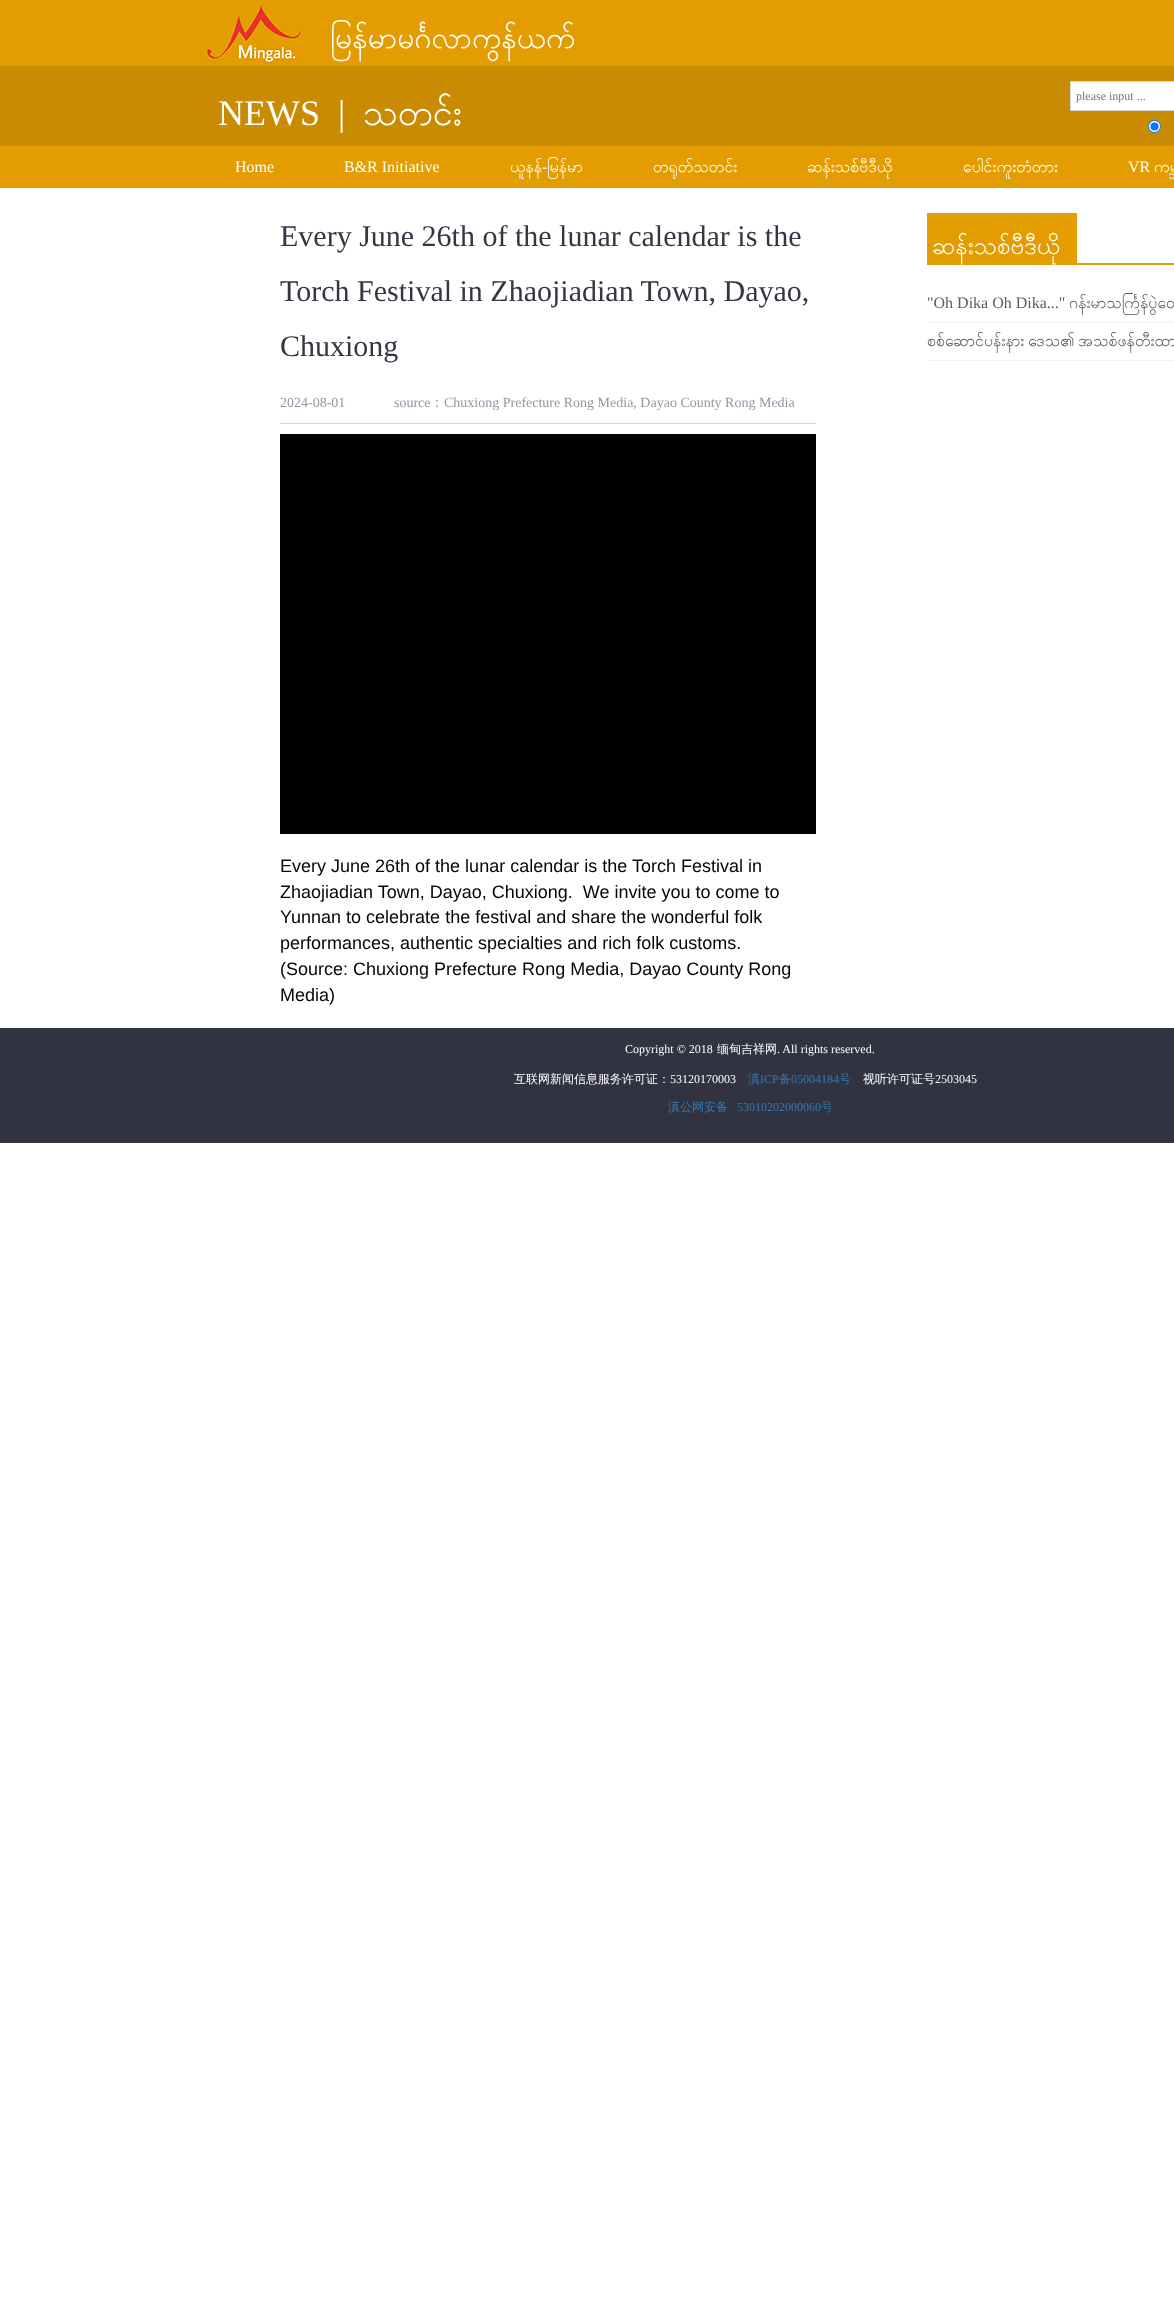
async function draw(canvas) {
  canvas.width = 1174
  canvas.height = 2316
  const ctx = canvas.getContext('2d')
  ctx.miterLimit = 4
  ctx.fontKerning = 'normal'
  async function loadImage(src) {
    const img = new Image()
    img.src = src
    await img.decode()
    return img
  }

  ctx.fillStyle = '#fff'
  ctx.fillRect(0, 0, 1174, 2316)
  ctx.fillStyle = '#e39d00'
  ctx.fillRect(0, 0, 1174, 66)
  ctx.drawImage(await loadImage('image0.png'), 206, 5, 96, 58)
  ctx.font = '30px Padauk'
  ctx.fillStyle = '#fff'
  ctx.fillText('မြန်မာမင်္ဂလာကွန်ယက်', 330, 48)
  ctx.fillStyle = '#c98b02'
  ctx.fillRect(0, 66, 1174, 80)
  ctx.font = '36px Liberation Serif'
  ctx.fillStyle = '#fff'
  ctx.fillText('NEWS  |', 218, 125)
  ctx.font = '36px Padauk'
  ctx.fillText('သတင်း', 363, 125)
  ctx.fillRect(1071, 82, 103, 28)
  ctx.fillStyle = '#d8d8d8'
  ctx.fillRect(1070, 81, 104, 1)
  ctx.fillRect(1070, 110, 104, 1)
  ctx.fillRect(1070, 81, 1, 30)
  ctx.font = '12px Liberation Serif'
  ctx.fillStyle = '#757575'
  ctx.fillText('please input ...', 1076, 100)
  ctx.fillStyle = '#fff'
  ctx.beginPath()
  ctx.arc(1154.5, 126.5, 6, 0, 2 * Math.PI)
  ctx.fill()
  ctx.strokeStyle = '#0075ff'
  ctx.stroke()
  ctx.fillStyle = '#0075ff'
  ctx.beginPath()
  ctx.arc(1154.5, 126.5, 4, 0, 2 * Math.PI)
  ctx.fill()
  ctx.fillStyle = '#e39d00'
  ctx.fillRect(0, 146, 1174, 42)
  ctx.font = '16px Liberation Serif'
  ctx.fillStyle = '#fff'
  ctx.fillText('Home', 235, 172)
  ctx.fillText('B&R Initiative', 344, 172)
  ctx.font = '16px Padauk'
  ctx.fillText('ယူနန်', 510, 172)
  ctx.font = '16px Liberation Serif'
  ctx.fillText('-', 542, 172)
  ctx.font = '16px Padauk'
  ctx.fillText('မြန်မာ', 547, 172)
  ctx.fillText('တရုတ်သတင်း', 653, 172)
  ctx.fillText('ဆန်းသစ်ဗီဒီယို', 807, 172)
  ctx.fillText('ပေါင်းကူးတံတား', 963, 172)
  ctx.font = '16px Liberation Serif'
  ctx.fillText('VR', 1128, 172)
  ctx.font = '16px Padauk'
  ctx.fillText('ကမ္ဘာ', 1154, 172)
  ctx.font = '30px Liberation Serif'
  ctx.fillStyle = '#333743'
  ctx.fillText('Every June 26th of the lunar calendar is the', 280, 246)
  ctx.fillText('Torch Festival in Zhaojiadian Town, Dayao,', 280, 301)
  ctx.fillText('Chuxiong', 280, 356)
  ctx.fillStyle = '#d4d4d4'
  ctx.fillRect(280, 423, 536, 1)
  ctx.font = '14px Liberation Serif'
  ctx.fillStyle = '#9297a3'
  ctx.fillText('2024-08-01', 280, 407)
  ctx.fillText('source', 394, 407)
  ctx.font = '500 14px WenQuanYi Zen Hei'
  ctx.fillText('：', 430, 407)
  ctx.font = '14px Liberation Serif'
  ctx.fillText('Chuxiong Prefecture Rong Media, Dayao County Rong Media', 444, 407)
  ctx.fillStyle = '#000'
  ctx.fillRect(280, 434, 536, 400)
  ctx.font = '18px Liberation Sans'
  ctx.fillStyle = '#050505'
  ctx.fillText('Every June 26th of the lunar calendar is the Torch Festival in', 280, 872)
  ctx.fillText('Zhaojiadian Town, Dayao, Chuxiong.  We invite you to come to', 280, 898)
  ctx.fillText('Yunnan to celebrate the festival and share the wonderful folk', 280, 923)
  ctx.fillText('performances, authentic specialties and rich folk customs.', 280, 949)
  ctx.fillText('(Source: Chuxiong Prefecture Rong Media, Dayao County Rong', 280, 975)
  ctx.fillText('Media)', 280, 1001)
  ctx.fillStyle = '#e39d00'
  ctx.fillRect(927, 263, 247, 2)
  ctx.fillRect(927, 213, 150, 50)
  ctx.font = '24px Padauk'
  ctx.fillStyle = '#fff'
  ctx.fillText('ဆန်းသစ်ဗီဒီယို', 932, 254)
  ctx.fillStyle = '#f3f3f3'
  ctx.fillRect(927, 322, 247, 1)
  ctx.font = '16px Liberation Serif'
  ctx.fillStyle = '#5c5c5c'
  ctx.fillText('"Oh Dika Oh Dika..."', 927, 308)
  ctx.font = '16px Padauk'
  ctx.fillText('ဂန်းမာသင်္ကြန်ပွဲတော်', 1069, 308)
  ctx.fillStyle = '#f3f3f3'
  ctx.fillRect(927, 360, 247, 1)
  ctx.wordSpacing = '-2px'
  ctx.fillStyle = '#5c5c5c'
  ctx.fillText('စစ်ဆောင်ပန်းနား ဒေသ၏ အသစ်ဖန်တီးထာ', 927, 346)
  ctx.fillStyle = '#313340'
  ctx.fillRect(0, 1028, 1174, 115)
  ctx.wordSpacing = '0px'
  ctx.font = '12px Liberation Serif'
  ctx.fillStyle = '#fff'
  ctx.fillText('Copyright © 2018', 625, 1053)
  ctx.font = '500 12px WenQuanYi Zen Hei'
  ctx.fillText('缅甸吉祥网', 717, 1053)
  ctx.font = '12px Liberation Serif'
  ctx.fillText('. All rights reserved.', 777, 1053)
  ctx.font = '500 12px WenQuanYi Zen Hei'
  ctx.fillText('互联网新闻信息服务许可证：', 514, 1083)
  ctx.font = '12px Liberation Serif'
  ctx.fillText('53120170003', 670, 1083)
  ctx.font = '500 12px WenQuanYi Zen Hei'
  ctx.fillStyle = '#337ab7'
  ctx.fillText('滇', 748, 1083)
  ctx.font = '12px Liberation Serif'
  ctx.fillText('ICP', 760, 1083)
  ctx.font = '500 12px WenQuanYi Zen Hei'
  ctx.fillText('备', 779, 1083)
  ctx.font = '12px Liberation Serif'
  ctx.fillText('05004184', 791, 1083)
  ctx.font = '500 12px WenQuanYi Zen Hei'
  ctx.fillText('号', 839, 1083)
  ctx.fillStyle = '#fff'
  ctx.fillText('视听许可证号', 863, 1083)
  ctx.font = '12px Liberation Serif'
  ctx.fillText('2503045', 935, 1083)
  ctx.font = '500 12px WenQuanYi Zen Hei'
  ctx.fillStyle = '#337ab7'
  ctx.fillText('滇公网安备', 668, 1111)
  ctx.font = '12px Liberation Serif'
  ctx.fillText('53010202000060', 737, 1111)
  ctx.font = '500 12px WenQuanYi Zen Hei'
  ctx.fillText('号', 821, 1111)
}

draw(document.querySelector('canvas'))
